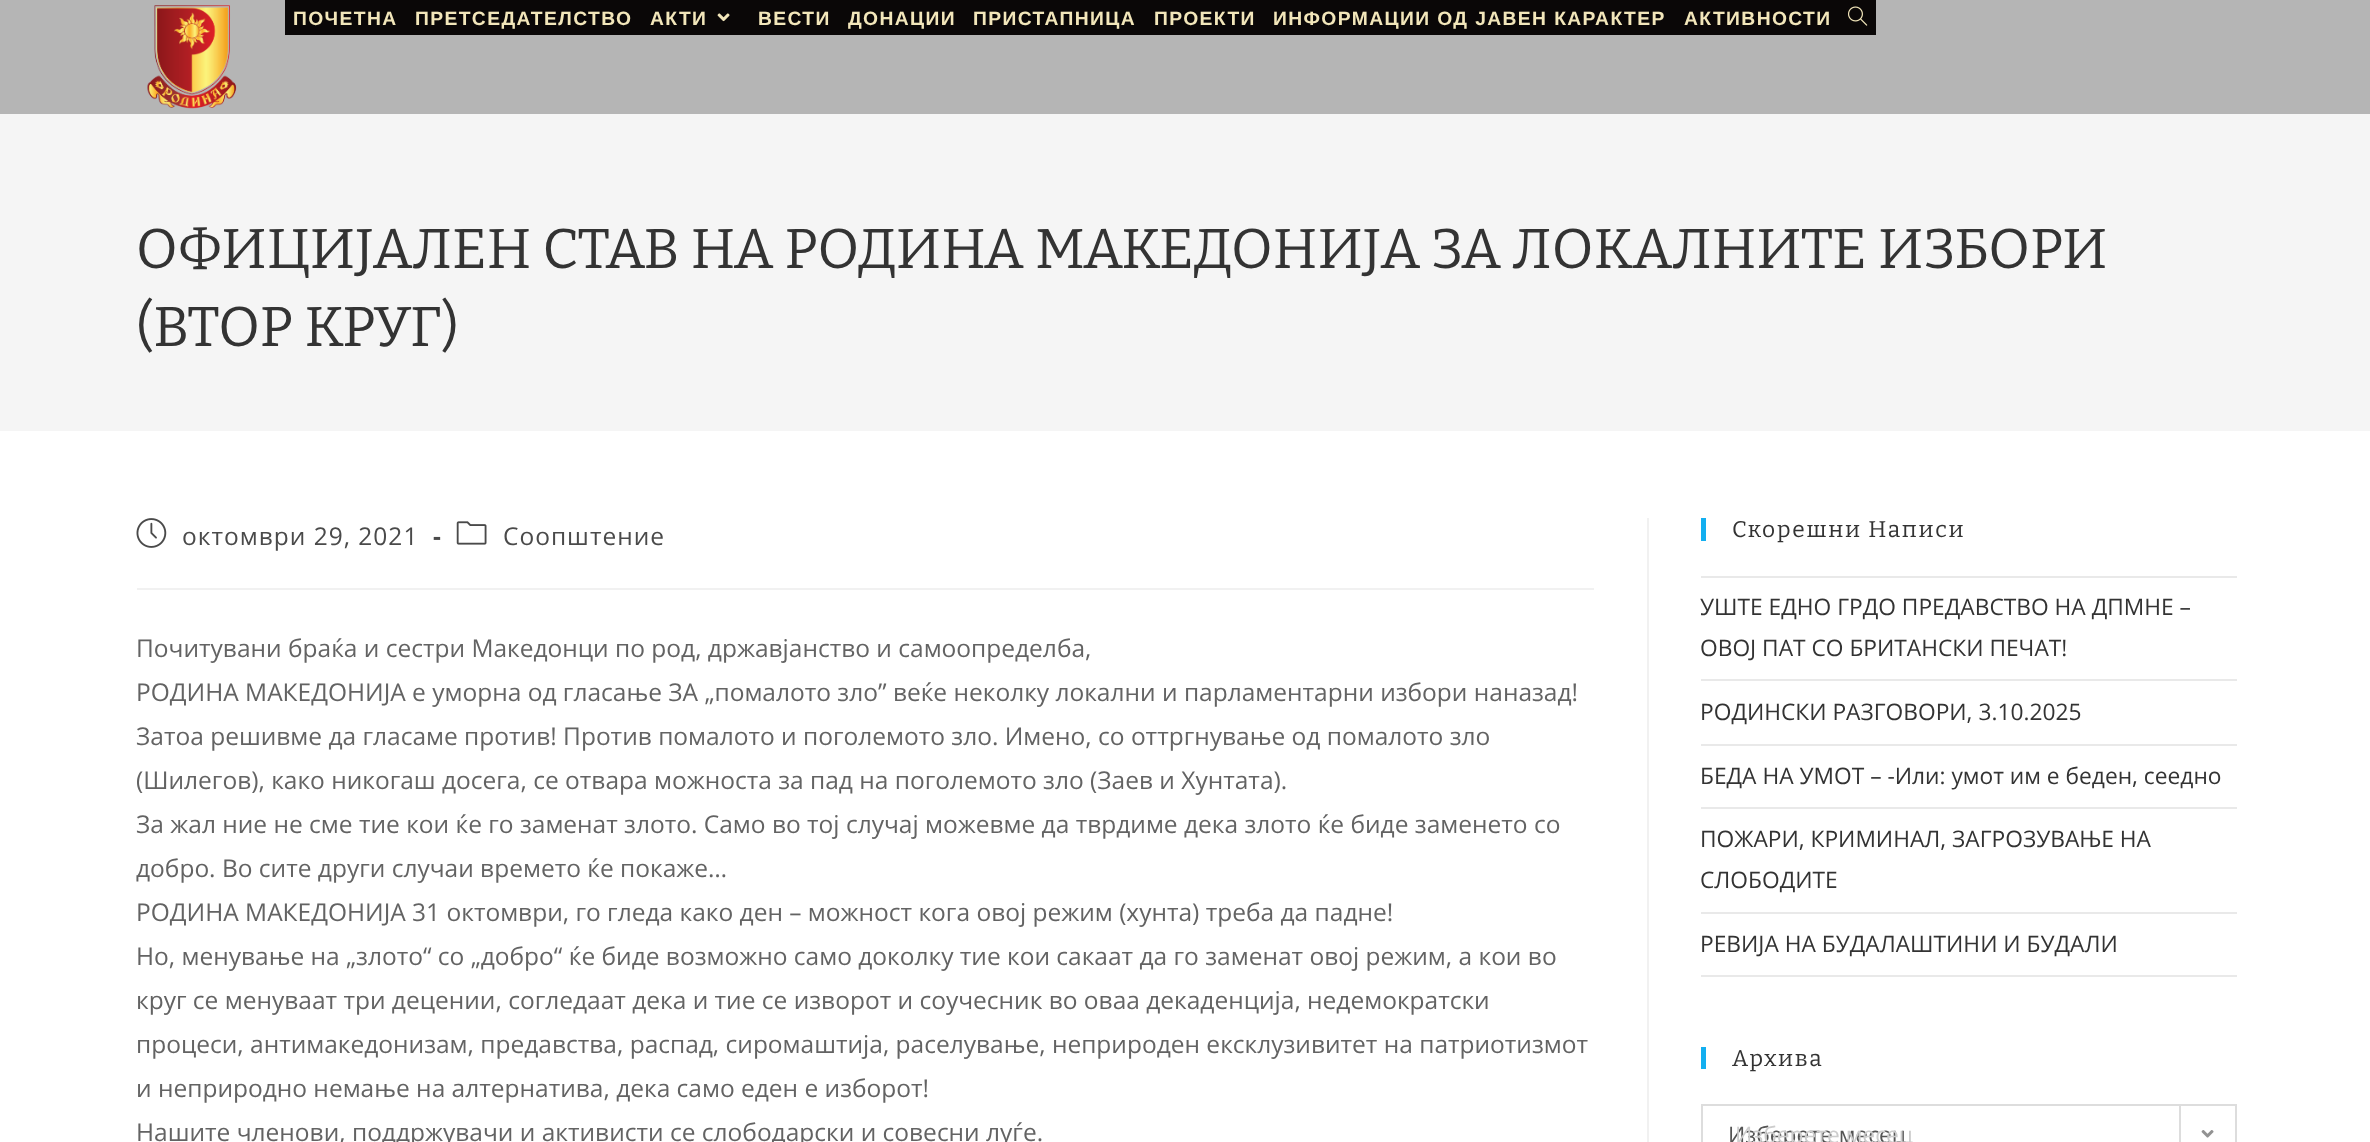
async function draw(canvas) {
  canvas.width = 2370
  canvas.height = 1142
  const ctx = canvas.getContext('2d')
  ctx.miterLimit = 4
  ctx.fontKerning = 'normal'
  async function loadImage(src) {
    const img = new Image()
    img.src = src
    await img.decode()
    return img
  }

  ctx.fillStyle = '#fff'
  ctx.fillRect(0, 0, 2370, 1142)
  ctx.fillStyle = '#b5b5b5'
  ctx.fillRect(0, 0, 2370, 114)
  ctx.drawImage(await loadImage('image0.png'), 147, 5, 90, 104)
  ctx.fillStyle = '#0a0707'
  ctx.fillRect(285, 0, 1591, 35)
  ctx.letterSpacing = '1.4px'
  ctx.font = 'bold 19.25px Liberation Sans'
  ctx.fillStyle = '#f2e6ba'
  ctx.fillText('ПОЧЕТНА', 293, 25)
  ctx.fillText('ПРЕТСЕДАТЕЛСТВО', 415, 25)
  ctx.fillText('АКТИ', 650, 25)
  ctx.drawImage(await loadImage('image1.png'), 717, 13, 13, 9)
  ctx.fillText('ВЕСТИ', 758, 25)
  ctx.fillText('ДОНАЦИИ', 848, 25)
  ctx.fillText('ПРИСТАПНИЦА', 973, 25)
  ctx.fillText('ПРОЕКТИ', 1154, 25)
  ctx.fillText('ИНФОРМАЦИИ ОД ЈАВЕН КАРАКТЕР', 1273, 25)
  ctx.fillText('АКТИВНОСТИ', 1684, 25)
  ctx.drawImage(await loadImage('image2.png'), 1848, 6, 20, 20)
  ctx.fillStyle = '#f5f5f5'
  ctx.fillRect(0, 114, 2370, 317)
  ctx.letterSpacing = '0px'
  ctx.font = '56px Bitter'
  ctx.fillStyle = '#333'
  ctx.fillText('ОФИЦИЈАЛЕН СТАВ НА РОДИНА МАКЕДОНИЈА ЗА ЛОКАЛНИТЕ ИЗБОРИ', 136, 268)
  ctx.fillText('(ВТОР КРУГ)', 136, 346)
  ctx.fillStyle = '#f1f1f1'
  ctx.fillRect(1647, 518, 2, 624)
  ctx.fillRect(137, 588, 1457, 2)
  ctx.drawImage(await loadImage('image3.png'), 136, 518, 31, 30)
  ctx.letterSpacing = '1px'
  ctx.font = '24.5px Open Sans'
  ctx.fillStyle = '#4a4a4a'
  ctx.fillText('октомври 29, 2021', 182, 545)
  ctx.font = 'bold 24.5px Open Sans'
  ctx.fillText('-', 433, 545)
  ctx.drawImage(await loadImage('image4.png'), 456, 521, 31, 24)
  ctx.font = '24.5px Open Sans'
  ctx.fillText('Соопштение', 503, 545)
  ctx.letterSpacing = '0px'
  ctx.fillStyle = '#636363'
  ctx.fillText('Почитувани браќа и сестри Македонци по род, државјанство и самоопределба,', 136, 657)
  ctx.fillText('РОДИНА МАКЕДОНИЈА е уморна од гласање ЗА „помалото зло” веќе неколку локални и парламентарни избори наназад!', 136, 701)
  ctx.fillText('Затоа решивме да гласаме против! Против помалото и поголемото зло. Имено, со оттргнување од помалото зло', 136, 745)
  ctx.fillText('(Шилегов), како никогаш досега, се отвара можноста за пад на поголемото зло (Заев и Хунтата).', 136, 789)
  ctx.fillText('За жал ние не сме тие кои ќе го заменат злото. Само во тој случај можевме да тврдиме дека злото ќе биде заменето со', 136, 833)
  ctx.fillText('добро. Во сите други случаи времето ќе покаже…', 136, 877)
  ctx.fillText('РОДИНА МАКЕДОНИЈА 31 октомври, го гледа како ден – можност кога овој режим (хунта) треба да падне!', 136, 921)
  ctx.fillText('Но, менување на „злото“ со „добро“ ќе биде возможно само доколку тие кои сакаат да го заменат овој режим, а кои во', 136, 965)
  ctx.fillText('круг се менуваат три децении, согледаат дека и тие се изворот и соучесник во оваа декаденција, недемократски', 136, 1009)
  ctx.fillText('процеси, антимакедонизам, предавства, распад, сиромаштија, раселување, неприроден ексклузивитет на патриотизмот', 136, 1053)
  ctx.fillText('и неприродно немање на алтернатива, дека само еден е изборот!', 136, 1097)
  ctx.fillText('Нашите членови, поддржувачи и активисти се слободарски и совесни луѓе.', 136, 1141)
  ctx.fillStyle = '#13aff0'
  ctx.fillRect(1701, 518, 5, 23)
  ctx.letterSpacing = '1.75px'
  ctx.font = '22.75px Bitter'
  ctx.fillStyle = '#333'
  ctx.fillText('Скорешни Написи', 1732, 537)
  ctx.fillStyle = '#e9e9e9'
  ctx.fillRect(1701, 576, 536, 2)
  ctx.fillRect(1701, 679, 536, 2)
  ctx.letterSpacing = '0px'
  ctx.font = '22.75px Open Sans'
  ctx.fillStyle = '#333'
  ctx.fillText('УШТЕ ЕДНО ГРДО ПРЕДАВСТВО НА ДПМНЕ –', 1700, 615)
  ctx.fillText('ОВОЈ ПАТ СО БРИТАНСКИ ПЕЧАТ!', 1700, 656)
  ctx.fillStyle = '#e9e9e9'
  ctx.fillRect(1701, 744, 536, 2)
  ctx.fillStyle = '#333'
  ctx.fillText('РОДИНСКИ РАЗГОВОРИ, 3.10.2025', 1700, 720)
  ctx.fillStyle = '#e9e9e9'
  ctx.fillRect(1701, 807, 536, 2)
  ctx.fillStyle = '#333'
  ctx.fillText('БЕДА НА УМОТ – -Или: умот им е беден, сеедно', 1700, 784)
  ctx.fillStyle = '#e9e9e9'
  ctx.fillRect(1701, 912, 536, 2)
  ctx.fillStyle = '#333'
  ctx.fillText('ПОЖАРИ, КРИМИНАЛ, ЗАГРОЗУВАЊЕ НА', 1700, 847)
  ctx.fillText('СЛОБОДИТЕ', 1700, 888)
  ctx.fillStyle = '#e9e9e9'
  ctx.fillRect(1701, 975, 536, 2)
  ctx.fillStyle = '#333'
  ctx.fillText('РЕВИЈА НА БУДАЛАШТИНИ И БУДАЛИ', 1700, 952)
  ctx.fillStyle = '#13aff0'
  ctx.fillRect(1701, 1047, 5, 22)
  ctx.letterSpacing = '1.75px'
  ctx.font = '22.75px Bitter'
  ctx.fillStyle = '#333'
  ctx.fillText('Архива', 1732, 1066)
  ctx.strokeStyle = '#ddd'
  ctx.lineWidth = 2
  ctx.strokeRect(1702, 1105, 534, 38)
  ctx.letterSpacing = '0px'
  ctx.font = '22.75px Open Sans'
  ctx.fillStyle = '#555'
  ctx.fillText('Изберете месец', 1728, 1143)
  ctx.fillStyle = '#ddd'
  ctx.fillRect(2179, 1106, 2, 36)
  ctx.drawImage(await loadImage('image5.png'), 2201, 1130, 13, 8)
  ctx.fillStyle = '#cdcdcd'
  ctx.fillText('Изберете месец', 1735, 1143)
}

draw(document.querySelector('canvas'))
